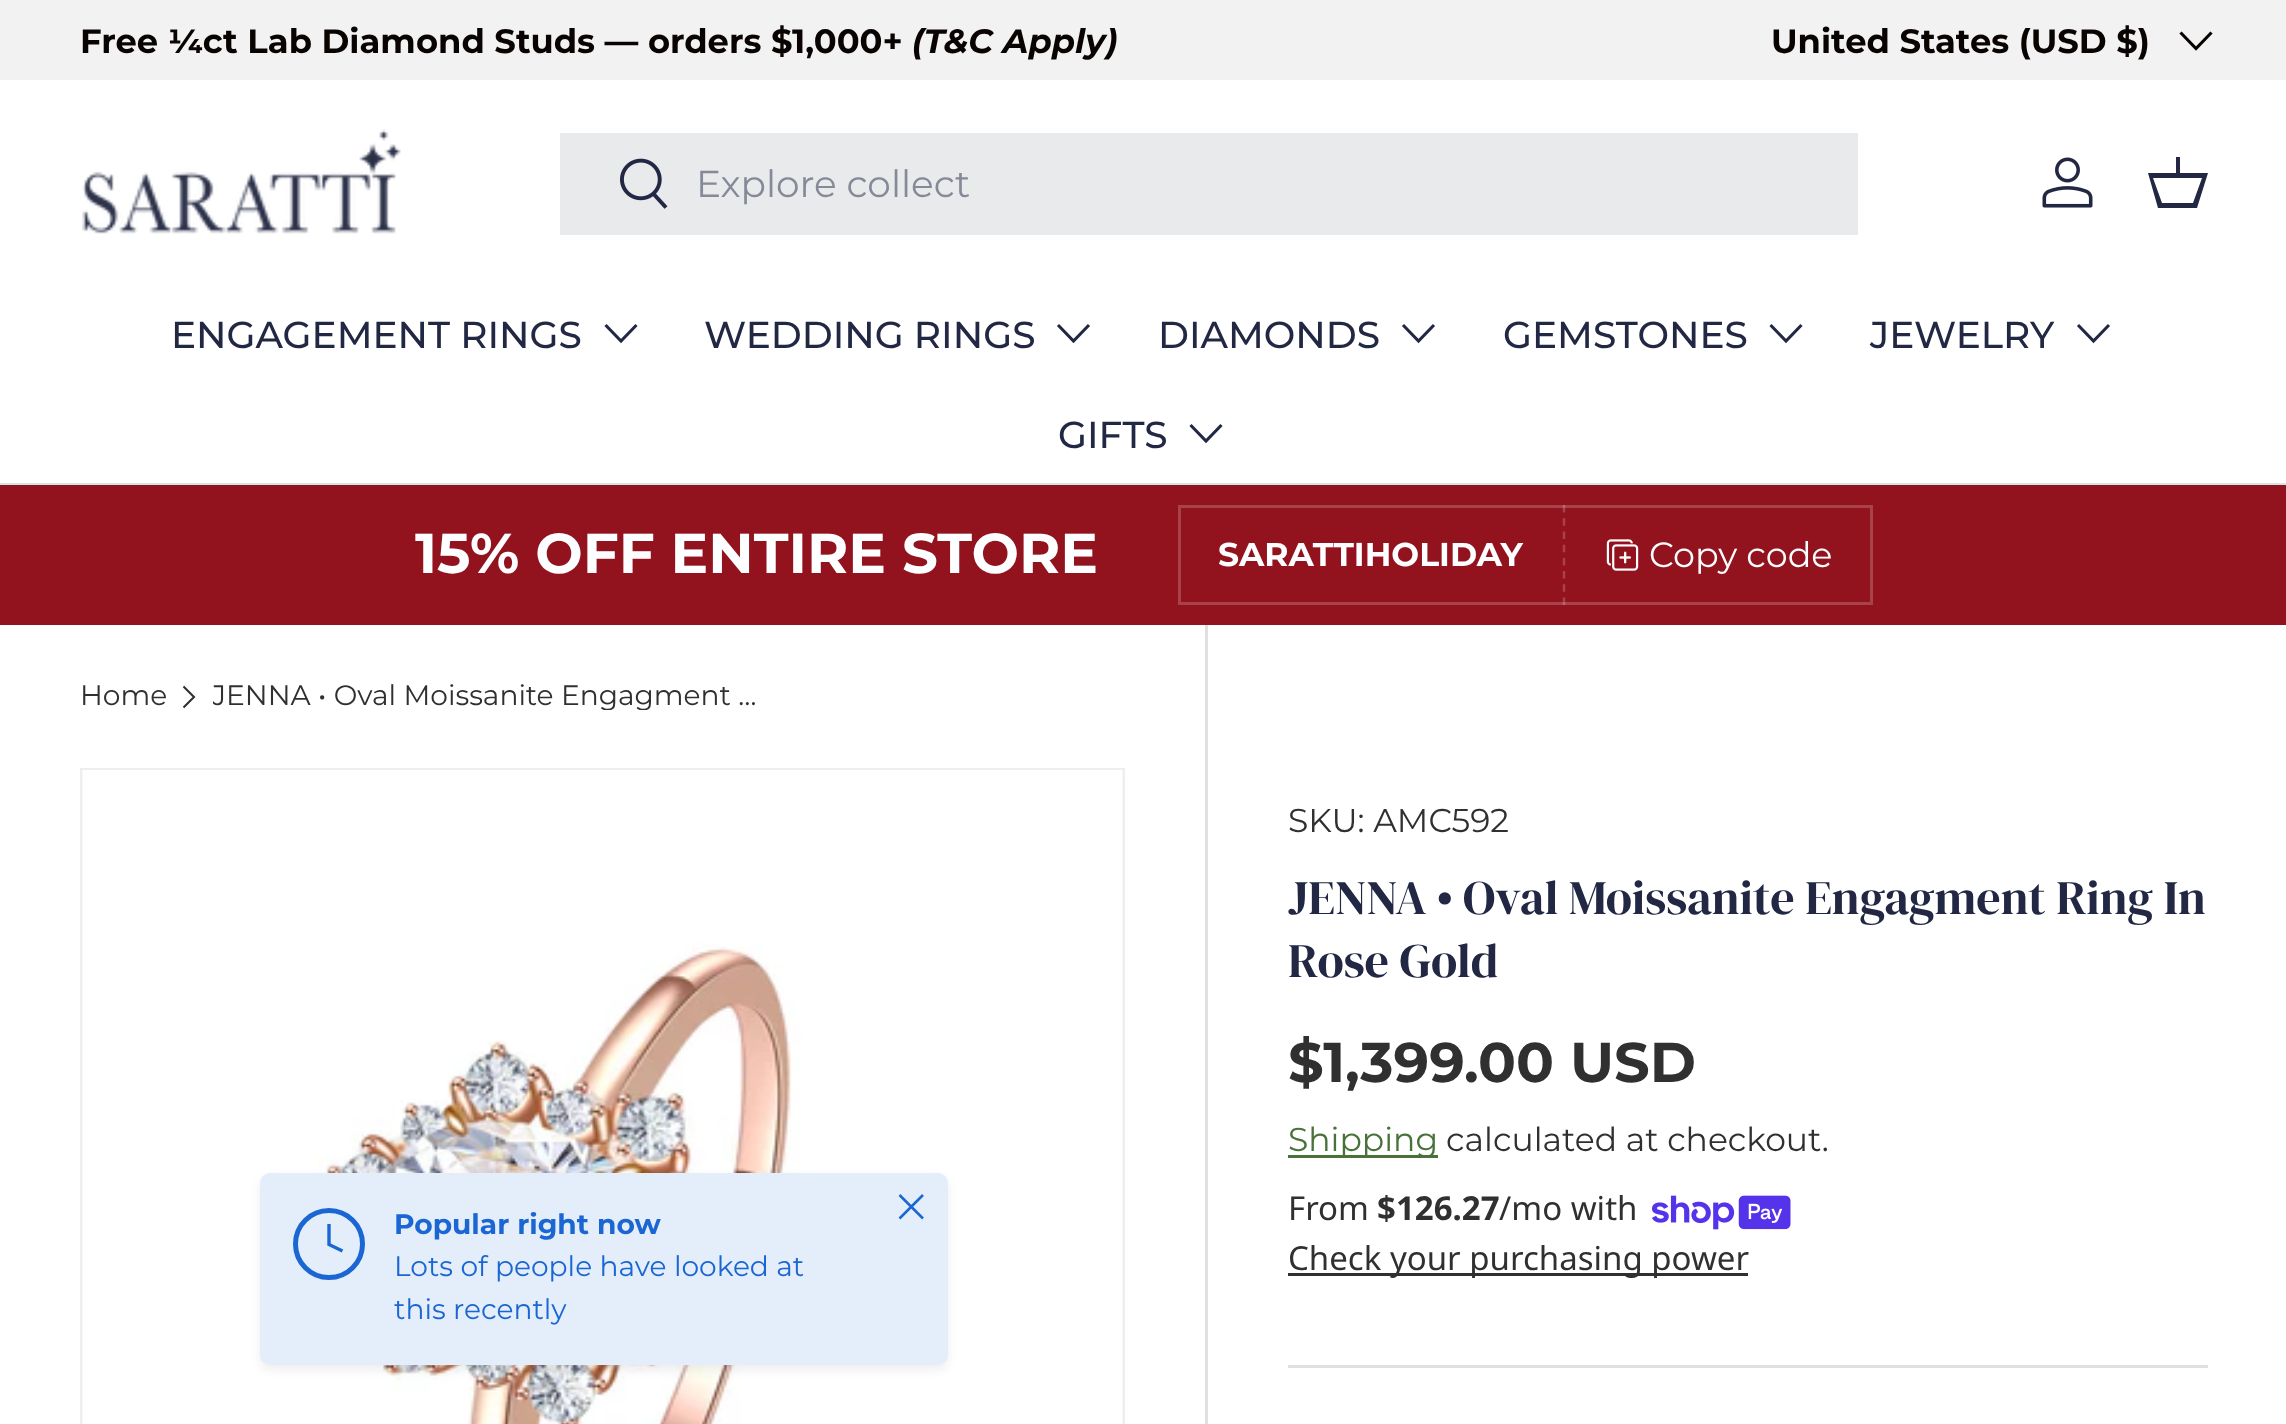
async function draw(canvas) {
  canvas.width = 2286
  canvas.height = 1424
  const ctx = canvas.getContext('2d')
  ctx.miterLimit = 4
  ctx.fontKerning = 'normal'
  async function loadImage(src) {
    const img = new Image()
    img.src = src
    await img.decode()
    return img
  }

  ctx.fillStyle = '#fff'
  ctx.fillRect(0, 0, 2286, 1424)
  ctx.fillStyle = '#dedfe3'
  ctx.fillRect(0, 483, 2286, 2)
  ctx.fillStyle = '#f2f2f2'
  ctx.fillRect(0, 0, 2286, 80)
  ctx.font = 'bold 33.75px Montserrat'
  ctx.fillStyle = '#090302'
  ctx.fillText('Free ¼ct Lab Diamond Studs — orders $1,000+', 80, 53)
  ctx.font = 'italic bold 33.75px Montserrat'
  ctx.fillText('(T&C Apply)', 912, 53)
  ctx.font = 'bold 33.75px Montserrat'
  ctx.fillText('United States (USD $)', 1771, 53)
  ctx.beginPath()
  ctx.moveTo(2211.5, 32.5)
  ctx.lineTo(2196, 48.5)
  ctx.lineTo(2180.5, 32.5)
  ctx.strokeStyle = '#090302'
  ctx.lineWidth = 3.1
  ctx.stroke()
  ctx.drawImage(await loadImage('image0.png'), 82, 129, 319, 105)
  ctx.fillStyle = '#e9eaec'
  ctx.fillRect(560, 133, 1298, 102)
  ctx.drawImage(await loadImage('image1.png'), 620, 158, 48, 51)
  ctx.font = '37.5px Montserrat'
  ctx.fillStyle = '#868998'
  ctx.fillText('Explore collect', 696, 197)
  ctx.drawImage(await loadImage('image2.png'), 2042, 157, 51, 51)
  ctx.fillStyle = '#222844'
  ctx.beginPath()
  ctx.moveTo(2176, 173)
  ctx.lineTo(2176, 157)
  ctx.lineTo(2180, 157)
  ctx.lineTo(2180, 173)
  ctx.lineTo(2208, 173)
  ctx.lineTo(2197, 208)
  ctx.lineTo(2158, 208)
  ctx.lineTo(2148, 173)
  ctx.closePath()
  ctx.moveTo(2153, 178)
  ctx.lineTo(2162, 203)
  ctx.lineTo(2193, 203)
  ctx.lineTo(2202, 178)
  ctx.closePath()
  ctx.fill()
  ctx.font = '500 37.5px Montserrat'
  ctx.fillText('ENGAGEMENT RINGS', 171, 348)
  ctx.beginPath()
  ctx.moveTo(636.5, 325)
  ctx.lineTo(621, 341)
  ctx.lineTo(605.5, 325)
  ctx.strokeStyle = '#222844'
  ctx.stroke()
  ctx.fillText('WEDDING RINGS', 704, 348)
  ctx.beginPath()
  ctx.moveTo(1089, 325)
  ctx.lineTo(1073.5, 341)
  ctx.lineTo(1058, 325)
  ctx.stroke()
  ctx.fillText('DIAMONDS', 1158, 348)
  ctx.beginPath()
  ctx.moveTo(1434, 325)
  ctx.lineTo(1418.5, 341)
  ctx.lineTo(1403, 325)
  ctx.stroke()
  ctx.fillText('GEMSTONES', 1503, 348)
  ctx.beginPath()
  ctx.moveTo(1801.5, 325)
  ctx.lineTo(1786, 341)
  ctx.lineTo(1770.5, 325)
  ctx.stroke()
  ctx.fillText('JEWELRY', 1870, 348)
  ctx.beginPath()
  ctx.moveTo(2109, 325)
  ctx.lineTo(2093.5, 341)
  ctx.lineTo(2078, 325)
  ctx.stroke()
  ctx.fillText('GIFTS', 1058, 448)
  ctx.beginPath()
  ctx.moveTo(1221.5, 425)
  ctx.lineTo(1206, 441)
  ctx.lineTo(1190.5, 425)
  ctx.stroke()
  ctx.fillStyle = '#92131e'
  ctx.fillRect(0, 486, 2286, 139)
  ctx.fillStyle = '#811624'
  ctx.fillRect(0, 485, 2286, 1)
  ctx.font = 'bold 56.25px Montserrat'
  ctx.fillStyle = '#fdfeff'
  ctx.fillText('15% OFF ENTIRE STORE', 415, 573)
  ctx.strokeStyle = '#a7424b'
  ctx.lineWidth = 3
  ctx.strokeRect(1179.5, 506.5, 692, 97)
  ctx.font = 'bold 33px Montserrat'
  ctx.fillText('SARATTIHOLIDAY', 1218, 566)
  ctx.beginPath()
  ctx.moveTo(1564, 505)
  ctx.lineTo(1564, 605)
  ctx.strokeStyle = '#fdfeff33'
  ctx.lineWidth = 2.5
  ctx.setLineDash([7.5, 5.72])
  ctx.stroke()
  ctx.drawImage(await loadImage('image3.png'), 1606, 539, 33, 32)
  ctx.font = '35px Montserrat'
  ctx.fillText('Copy code', 1649, 567)
  ctx.font = '28.1px Montserrat'
  ctx.fillStyle = '#303030'
  ctx.fillText('Home', 80, 705)
  ctx.beginPath()
  ctx.moveTo(183.5, 686.5)
  ctx.lineTo(194, 697)
  ctx.lineTo(183.5, 707.5)
  ctx.strokeStyle = '#303030'
  ctx.lineWidth = 2.1
  ctx.setLineDash([])
  ctx.stroke()
  ctx.save()
  ctx.beginPath()
  ctx.rect(213, 683, 562, 27)
  ctx.clip()
  ctx.fillText('JENNA • Oval Moissanite Engagment …', 212, 705)
  ctx.restore()
  ctx.strokeStyle = '#eee'
  ctx.lineWidth = 3
  ctx.strokeRect(81.5, 769.5, 1042, 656)
  ctx.drawImage(await loadImage('image4.png'), 82, 770, 1041, 654)
  ctx.fillStyle = '#212b3614'
  ctx.filter = 'blur(5px)'
  ctx.beginPath()
  ctx.roundRect(260, 1178, 688, 192, 10)
  ctx.fill()
  ctx.filter = 'none'
  ctx.fillStyle = '#e4edfa'
  ctx.beginPath()
  ctx.roundRect(260, 1173, 688, 192, 10)
  ctx.fill()
  ctx.beginPath()
  ctx.arc(329, 1244, 33.5, 0, 2 * Math.PI)
  ctx.strokeStyle = '#1a66d2'
  ctx.lineWidth = 5
  ctx.stroke()
  ctx.beginPath()
  ctx.moveTo(329, 1224)
  ctx.lineTo(329, 1244.5)
  ctx.lineTo(342.5, 1251)
  ctx.lineWidth = 3.4
  ctx.stroke()
  ctx.font = 'bold 28.1px Montserrat'
  ctx.fillStyle = '#1a66d2'
  ctx.fillText('Popular right now', 394, 1234)
  ctx.font = '28.1px Montserrat'
  ctx.fillText('Lots of people have looked at', 394, 1276)
  ctx.fillText('this recently', 394, 1319)
  ctx.beginPath()
  ctx.moveTo(899.5, 1218.5)
  ctx.lineTo(923, 1195)
  ctx.moveTo(899.5, 1195)
  ctx.lineTo(923, 1218.5)
  ctx.lineWidth = 2.5
  ctx.lineJoin = 'round'
  ctx.stroke()
  ctx.fillStyle = '#e0e0e0'
  ctx.fillRect(1205, 625, 3, 799)
  ctx.font = '33px Montserrat'
  ctx.fillStyle = '#303030'
  ctx.fillText('SKU: AMC592', 1288, 832)
  ctx.font = '48.1px DM Serif Display'
  ctx.fillStyle = '#222844'
  ctx.fillText('JENNA • Oval Moissanite Engagment Ring In', 1288, 914)
  ctx.fillText('Rose Gold', 1288, 977)
  ctx.font = 'bold 56px Montserrat'
  ctx.fillStyle = '#303030'
  ctx.fillText('$1,399.00 USD', 1288, 1082)
  ctx.fillStyle = '#49723b'
  ctx.fillRect(1288, 1155, 150, 3)
  ctx.font = '33px Montserrat'
  ctx.fillText('Shipping', 1288, 1151)
  ctx.fillStyle = '#303030'
  ctx.fillText('calculated at checkout.', 1446, 1151)
  ctx.font = '33px Noto Sans'
  ctx.fillText('From', 1288, 1220)
  ctx.font = 'bold 33px Noto Sans'
  ctx.fillText('$126.27', 1377, 1220)
  ctx.font = '33px Noto Sans'
  ctx.fillText('/mo with', 1499, 1220)
  ctx.drawImage(await loadImage('image5.png'), 1651, 1195, 140, 35)
  ctx.fillRect(1288, 1273, 460, 3)
  ctx.fillText('Check your purchasing power', 1288, 1270)
  ctx.fillStyle = '#e0e0e0'
  ctx.fillRect(1288, 1365, 920, 3)
}

draw(document.querySelector('canvas'))
